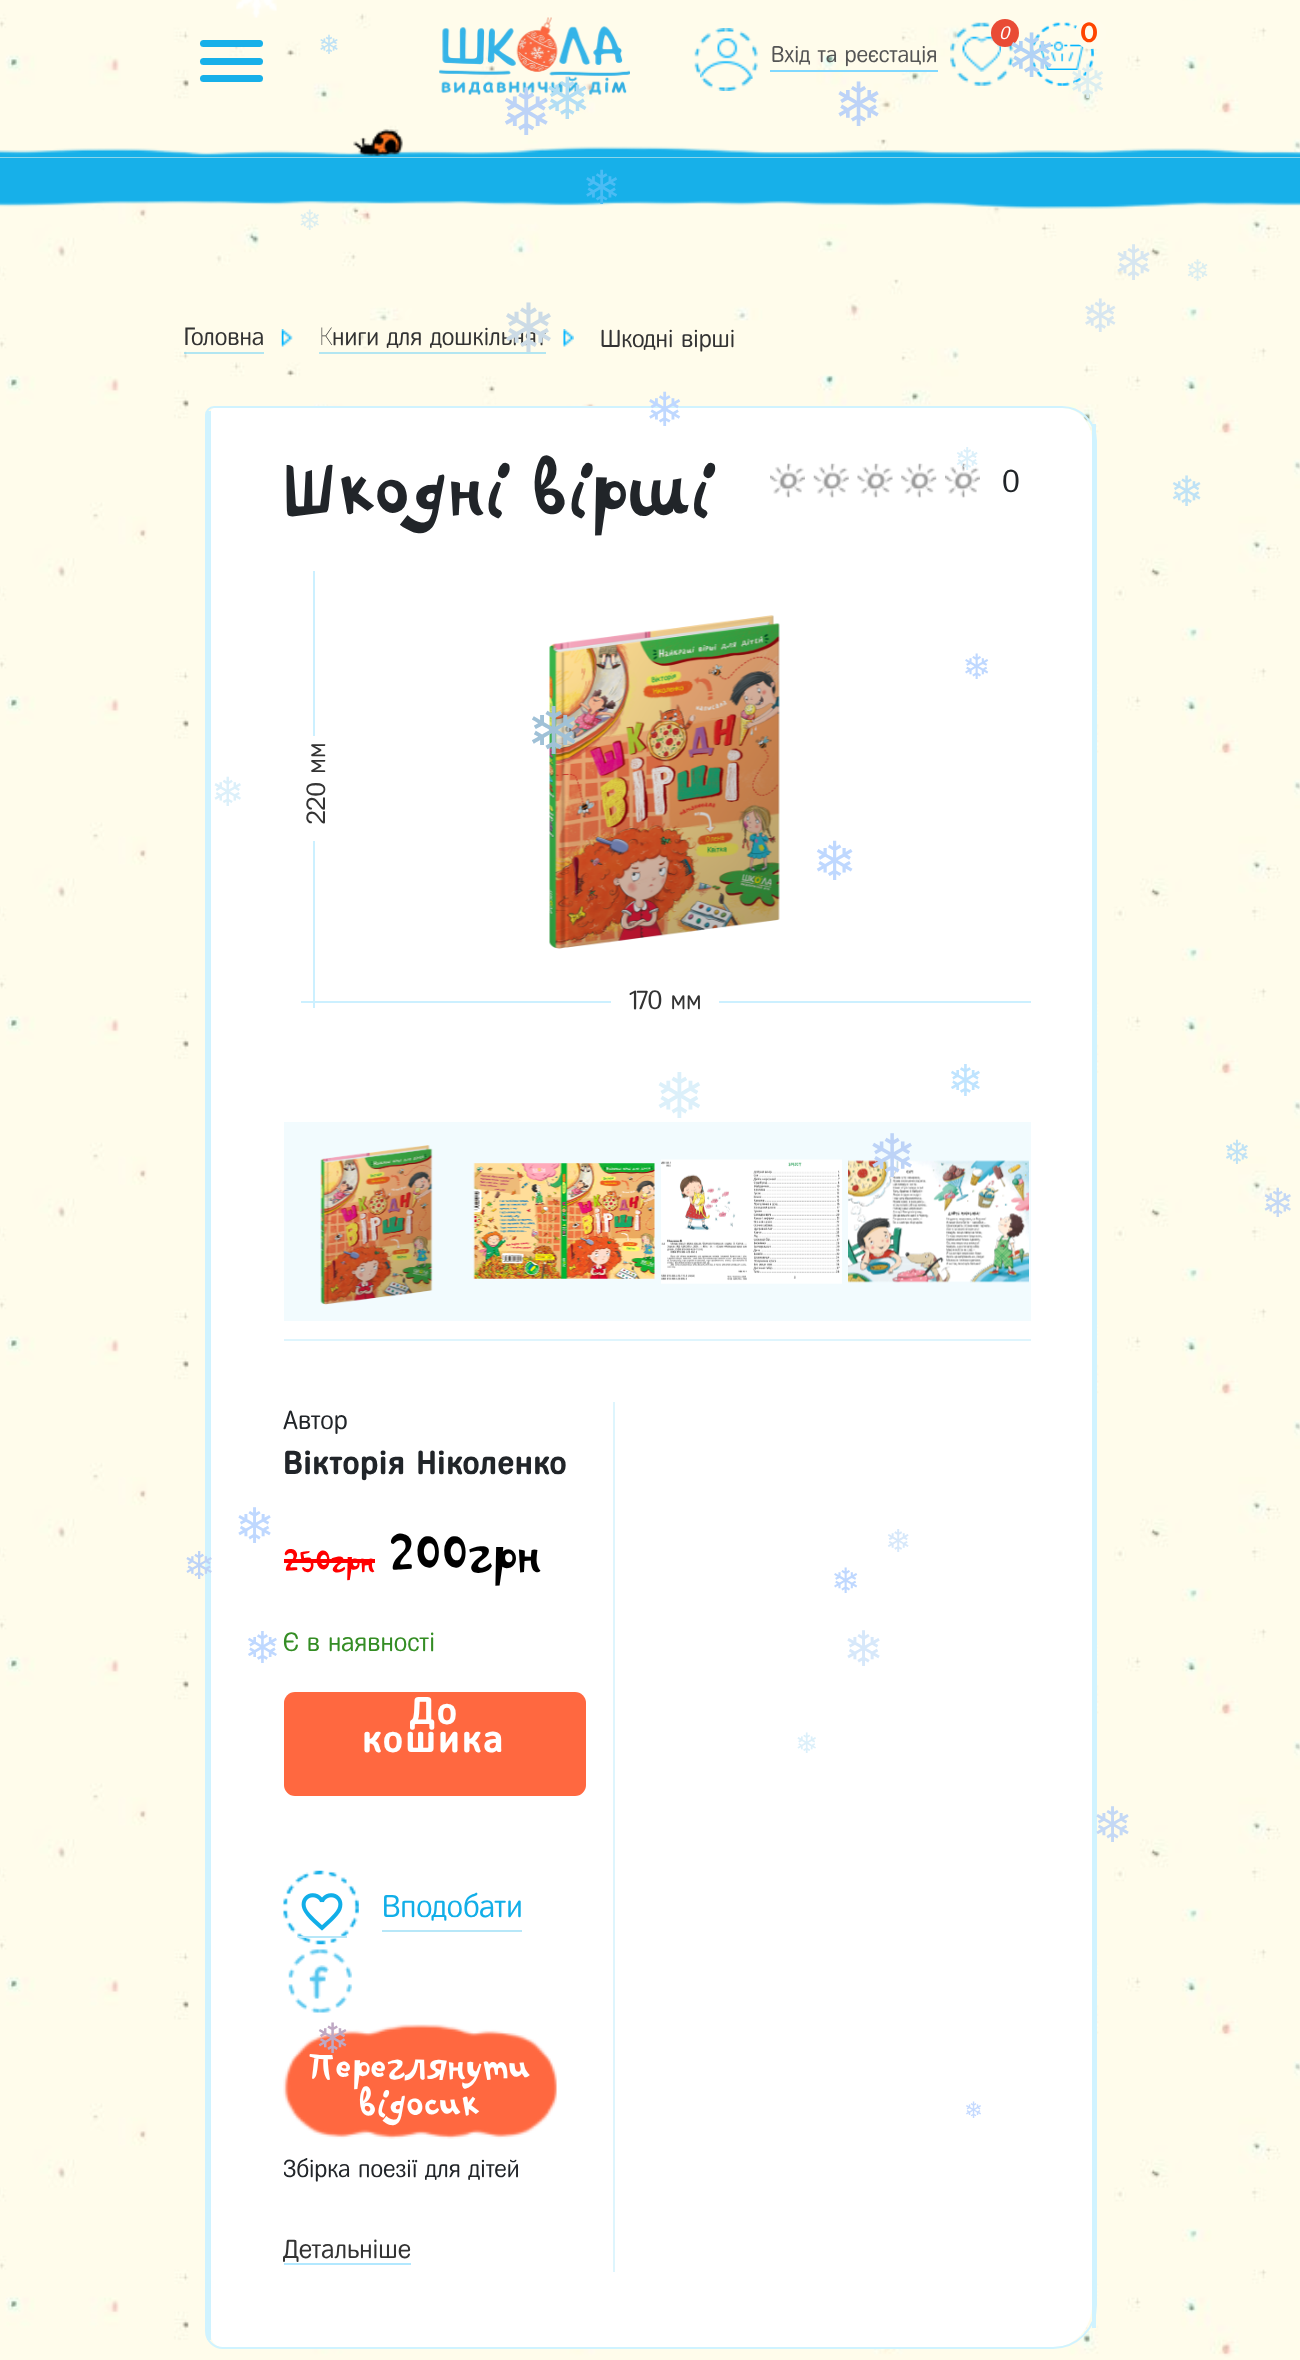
async function draw(canvas) {
  canvas.width = 1300
  canvas.height = 2360
  const ctx = canvas.getContext('2d')
  ctx.miterLimit = 4
  ctx.fontKerning = 'normal'
  async function loadImage(src) {
    const img = new Image()
    img.src = src
    await img.decode()
    return img
  }

  ctx.fillStyle = '#fff'
  ctx.fillRect(0, 0, 1300, 2360)
  ctx.drawImage(await loadImage('image0.png'), 0, 0, 1300, 2360)
  ctx.drawImage(await loadImage('image2.png'), 12, 0, 1076, 101)
  ctx.drawImage(await loadImage('image1.png'), 236, 0, 41, 18)
  ctx.fillStyle = '#17b0e9'
  ctx.beginPath()
  ctx.roundRect(200, 40, 63, 7, 3.5)
  ctx.fill()
  ctx.beginPath()
  ctx.roundRect(200, 58, 63, 7, 3.5)
  ctx.fill()
  ctx.beginPath()
  ctx.roundRect(200, 75, 63, 7, 3.5)
  ctx.fill()
  ctx.drawImage(await loadImage('image3.png'), 439, 17, 191, 78)
  ctx.drawImage(await loadImage('image4.png'), 950, 22, 64, 64)
  ctx.drawImage(await loadImage('image5.png'), 962, 36, 39, 36)
  ctx.fillStyle = '#e94b35'
  ctx.beginPath()
  ctx.arc(1005, 33, 14, 0, 2 * Math.PI)
  ctx.fill()
  ctx.font = 'italic 18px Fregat'
  ctx.fillStyle = '#fff'
  ctx.fillText('0', 999, 39)
  ctx.drawImage(await loadImage('image7.png'), 1039, 41, 45, 29)
  ctx.drawImage(await loadImage('image6.png'), 1030, 22, 64, 64)
  ctx.fillStyle = '#fffcec'
  ctx.beginPath()
  ctx.arc(1090.5, 33.5, 15.5, 0, 2 * Math.PI)
  ctx.fill()
  ctx.font = 'bold 28px Fregat'
  ctx.fillStyle = '#ff4500'
  ctx.fillText('0', 1080, 42)
  ctx.drawImage(await loadImage('image9.png'), 700, 38, 53, 41)
  ctx.drawImage(await loadImage('image8.png'), 694, 28, 64, 63)
  ctx.fillStyle = '#80d9ff'
  ctx.fillRect(770, 70, 168, 2)
  ctx.font = '22.75px Fregat'
  ctx.fillStyle = '#555'
  ctx.fillText('Вхід та реєстація', 771, 62)
  ctx.fillStyle = '#17b0e9'
  ctx.fillRect(0, 158, 1300, 42)
  ctx.drawImage(await loadImage('image11.png'), 0, 146, 1300, 12)
  ctx.drawImage(await loadImage('image10.png'), 353, 129, 50, 27)
  ctx.drawImage(await loadImage('image12.png'), 0, 200, 1300, 9)
  ctx.fillStyle = '#01b4ff4d'
  ctx.fillRect(184, 352, 80, 2)
  ctx.font = '24.5px Noto Sans'
  ctx.fillStyle = '#333'
  ctx.fillText('Г', 183, 345)
  ctx.font = '24.5px Fregat'
  ctx.fillText('оловна', 191, 345)
  ctx.drawImage(await loadImage('image13.png'), 281, 329, 12, 18)
  ctx.fillStyle = '#b3e6f1'
  ctx.fillRect(319, 352, 227, 2)
  ctx.font = '100 24.5px Noto Sans'
  ctx.fillStyle = '#333'
  ctx.fillText('К', 319, 345)
  ctx.font = '24.5px Fregat'
  ctx.fillText('ниги для дошкільнят', 332, 345)
  ctx.drawImage(await loadImage('image14.png'), 563, 329, 11, 18)
  ctx.fillText('Шкодні вірші', 600, 347)
  ctx.fillStyle = '#fff'
  ctx.beginPath()
  ctx.moveTo(214, 408)
  ctx.lineTo(1062, 408)
  ctx.bezierCurveTo(1079, 408, 1092, 423, 1092, 441)
  ctx.lineTo(1092, 2305)
  ctx.bezierCurveTo(1092, 2328, 1075, 2347, 1054, 2347)
  ctx.lineTo(222, 2347)
  ctx.bezierCurveTo(215, 2347, 210, 2340, 210, 2331)
  ctx.lineTo(210, 415)
  ctx.bezierCurveTo(210, 411, 212, 408, 214, 408)
  ctx.closePath()
  ctx.fill()
  ctx.beginPath()
  ctx.roundRect(206, 407, 890, 1941, [8, 34, 43, 17])
  ctx.strokeStyle = '#d0f3ff'
  ctx.lineWidth = 2
  ctx.stroke()
  ctx.fillStyle = '#d0f3ff'
  ctx.fillRect(1092, 424, 4, 1904)
  ctx.fillRect(207, 411, 4, 1929)
  ctx.font = '105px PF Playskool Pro'
  ctx.fillStyle = '#212529'
  ctx.fillText('Шкодні вірші', 283, 515)
  ctx.drawImage(await loadImage('image15.png'), 770, 463, 35, 35)
  ctx.drawImage(await loadImage('image16.png'), 813, 463, 36, 35)
  ctx.drawImage(await loadImage('image17.png'), 857, 463, 36, 35)
  ctx.drawImage(await loadImage('image18.png'), 901, 463, 36, 35)
  ctx.drawImage(await loadImage('image19.png'), 945, 463, 35, 35)
  ctx.font = '31.5px Fregat'
  ctx.fillText('0', 1002, 492)
  ctx.fillStyle = '#ccf0ff'
  ctx.fillRect(313, 571, 2, 437)
  ctx.fillStyle = '#fff'
  ctx.fillRect(313, 736, 2, 105)
  ctx.font = '26.25px Fregat'
  ctx.fillStyle = '#333'
  ctx.save()
  ctx.translate(325, 824)
  ctx.rotate(-90 * Math.PI / 180)
  ctx.fillText('220 мм', 0, 0)
  ctx.restore()
  ctx.drawImage(await loadImage('image20.png'), 549, 615, 231, 334)
  ctx.fillStyle = '#ccf0ff'
  ctx.fillRect(301, 1001, 730, 2)
  ctx.fillStyle = '#fff'
  ctx.fillRect(611, 1001, 108, 2)
  ctx.fillStyle = '#333'
  ctx.fillText('170 мм', 629, 1009)
  ctx.fillStyle = '#f2fbfe'
  ctx.fillRect(284, 1122, 747, 199)
  ctx.drawImage(await loadImage('image21.png'), 320, 1145, 113, 160)
  ctx.drawImage(await loadImage('image22.png'), 473, 1163, 182, 116)
  ctx.drawImage(await loadImage('image23.png'), 661, 1159, 181, 125)
  ctx.drawImage(await loadImage('image24.png'), 848, 1160, 181, 123)
  ctx.fillStyle = '#def5fd'
  ctx.fillRect(284, 1339, 747, 2)
  ctx.fillRect(613, 1402, 2, 870)
  ctx.fillStyle = '#212529'
  ctx.fillText('Автор', 283, 1429)
  ctx.font = 'bold 33.25px Fregat'
  ctx.fillText('Вікторія Ніколенко', 283, 1474)
  ctx.font = '42px PF Playskool Pro'
  ctx.fillStyle = '#f00'
  ctx.fillText('250грн', 283, 1572)
  ctx.fillRect(284, 1559, 91, 4)
  ctx.font = '70px PF Playskool Pro'
  ctx.fillStyle = '#000'
  ctx.fillText('200грн', 388, 1572)
  ctx.font = '26.25px Fregat'
  ctx.fillStyle = '#348d24'
  ctx.fillText('Є в наявності', 283, 1651)
  ctx.fillStyle = '#ff6840'
  ctx.beginPath()
  ctx.roundRect(284, 1692, 302, 104, 11)
  ctx.fill()
  ctx.letterSpacing = '2px'
  ctx.font = 'bold 38.5px Fregat'
  ctx.fillStyle = '#fff'
  ctx.fillText('До', 410, 1724)
  ctx.fillText('кошика', 362, 1752)
  ctx.drawImage(await loadImage('image25.png'), 283, 1870, 76, 75)
  ctx.fillStyle = '#b7e7f8'
  ctx.fillRect(298, 1936, 49, 2)
  ctx.drawImage(await loadImage('image26.png'), 301, 1893, 42, 38)
  ctx.fillRect(382, 1930, 140, 2)
  ctx.letterSpacing = '0px'
  ctx.font = '31.5px Fregat'
  ctx.fillStyle = '#11aee8'
  ctx.fillText('Вподобати', 382, 1917)
  ctx.drawImage(await loadImage('image28.png'), 309, 1965, 20, 34)
  ctx.drawImage(await loadImage('image27.png'), 288, 1949, 64, 64)
  ctx.drawImage(await loadImage('image29.png'), 283, 2024, 274, 115)
  ctx.font = '52.5px PF Playskool Pro'
  ctx.fillStyle = '#fff'
  ctx.fillText('Переглянути', 309, 2079)
  ctx.fillText('відосик', 358, 2116)
  ctx.save()
  ctx.beginPath()
  ctx.rect(284, 2149, 302, 67)
  ctx.clip()
  ctx.font = '24.5px Fregat'
  ctx.fillStyle = '#212529'
  ctx.fillText('Збірка поезії для дітей', 283, 2177)
  ctx.restore()
  ctx.font = '26.25px Fregat'
  ctx.fillStyle = '#333'
  ctx.fillText('Детальніше', 283, 2258)
  ctx.fillStyle = '#b2e8ff'
  ctx.fillRect(284, 2263, 127, 2)
  ctx.font = '26.25px DejaVu Sans'
  ctx.fillStyle = '#bfe2f5'
  ctx.fillText('❄', 318, 54)
  ctx.font = '61px DejaVu Sans'
  ctx.fillStyle = '#b2d2f5'
  ctx.fillText('❄', 1006, 77)
  ctx.font = '65px DejaVu Sans'
  ctx.fillStyle = '#bdd3f7'
  ctx.fillText('❄', 499, 135)
  ctx.font = '58px DejaVu Sans'
  ctx.fillStyle = '#b3def4'
  ctx.fillText('❄', 543, 119)
  ctx.font = '61px DejaVu Sans'
  ctx.fillStyle = '#bdd3f7'
  ctx.fillText('❄', 833, 126)
  ctx.font = '47px DejaVu Sans'
  ctx.fillStyle = '#dceef0'
  ctx.fillText('❄', 1068, 98)
  ctx.fillStyle = '#4bbcf4'
  ctx.fillText('❄', 582, 204)
  ctx.font = '28px DejaVu Sans'
  ctx.fillStyle = '#dceef0'
  ctx.fillText('❄', 298, 230)
  ctx.font = '49px DejaVu Sans'
  ctx.fillStyle = '#d7e6f0'
  ctx.fillText('❄', 1113, 280)
  ctx.font = '30px DejaVu Sans'
  ctx.fillStyle = '#dceef0'
  ctx.fillText('❄', 1185, 281)
  ctx.font = '68px DejaVu Sans'
  ctx.fillStyle = '#ccdbe6'
  ctx.fillText('❄', 500, 352)
  ctx.font = '46px DejaVu Sans'
  ctx.fillStyle = '#d7e6f0'
  ctx.fillText('❄', 1081, 332)
  ctx.font = '47px DejaVu Sans'
  ctx.fillStyle = '#bfd8ff'
  ctx.fillText('❄', 645, 426)
  ctx.font = '31.5px DejaVu Sans'
  ctx.fillStyle = '#dcf0fa'
  ctx.fillText('❄', 954, 470)
  ctx.font = '42px DejaVu Sans'
  ctx.fillStyle = '#bfe2f5'
  ctx.fillText('❄', 1169, 506)
  ctx.font = '35px DejaVu Sans'
  ctx.fillStyle = '#bfd8ff'
  ctx.fillText('❄', 962, 679)
  ctx.font = '66px DejaVu Sans'
  ctx.fillStyle = '#a0c1d7'
  ctx.fillText('❄', 526, 754)
  ctx.font = '40px DejaVu Sans'
  ctx.fillStyle = '#dcf0fa'
  ctx.fillText('❄', 211, 806)
  ctx.font = '54px DejaVu Sans'
  ctx.fillStyle = '#bfd8ff'
  ctx.fillText('❄', 812, 880)
  ctx.font = '63px DejaVu Sans'
  ctx.fillStyle = '#dcf0fa'
  ctx.fillText('❄', 653, 1118)
  ctx.font = '44px DejaVu Sans'
  ctx.fillStyle = '#bfe4ff'
  ctx.fillText('❄', 947, 1096)
  ctx.font = '60px DejaVu Sans'
  ctx.fillStyle = '#bdd3f7'
  ctx.fillText('❄', 867, 1177)
  ctx.font = '33.25px DejaVu Sans'
  ctx.fillStyle = '#bfe2f5'
  ctx.fillText('❄', 1223, 1164)
  ctx.font = '40px DejaVu Sans'
  ctx.fillStyle = '#c4d8f5'
  ctx.fillText('❄', 1261, 1217)
  ctx.font = '49px DejaVu Sans'
  ctx.fillStyle = '#bfd8ff'
  ctx.fillText('❄', 234, 1543)
  ctx.font = '31.5px DejaVu Sans'
  ctx.fillStyle = '#d7e8fa'
  ctx.fillText('❄', 885, 1552)
  ctx.font = '38.5px DejaVu Sans'
  ctx.fillStyle = '#bdd3f7'
  ctx.fillText('❄', 183, 1579)
  ctx.font = '35px DejaVu Sans'
  ctx.fillStyle = '#bfd8ff'
  ctx.fillText('❄', 831, 1593)
  ctx.font = '44px DejaVu Sans'
  ctx.fillText('❄', 244, 1663)
  ctx.font = '49px DejaVu Sans'
  ctx.fillStyle = '#d7e8fa'
  ctx.fillText('❄', 843, 1666)
  ctx.font = '28px DejaVu Sans'
  ctx.fillStyle = '#dcf0fa'
  ctx.fillText('❄', 795, 1753)
  ctx.font = '49px DejaVu Sans'
  ctx.fillStyle = '#c4d8f5'
  ctx.fillText('❄', 1092, 1842)
  ctx.font = '42px DejaVu Sans'
  ctx.fillStyle = '#bfa8c3'
  ctx.fillText('❄', 315, 2053)
  ctx.font = '22.75px DejaVu Sans'
  ctx.fillStyle = '#c5daff'
  ctx.fillText('❄', 964, 2118)
}

draw(document.querySelector('canvas'))
